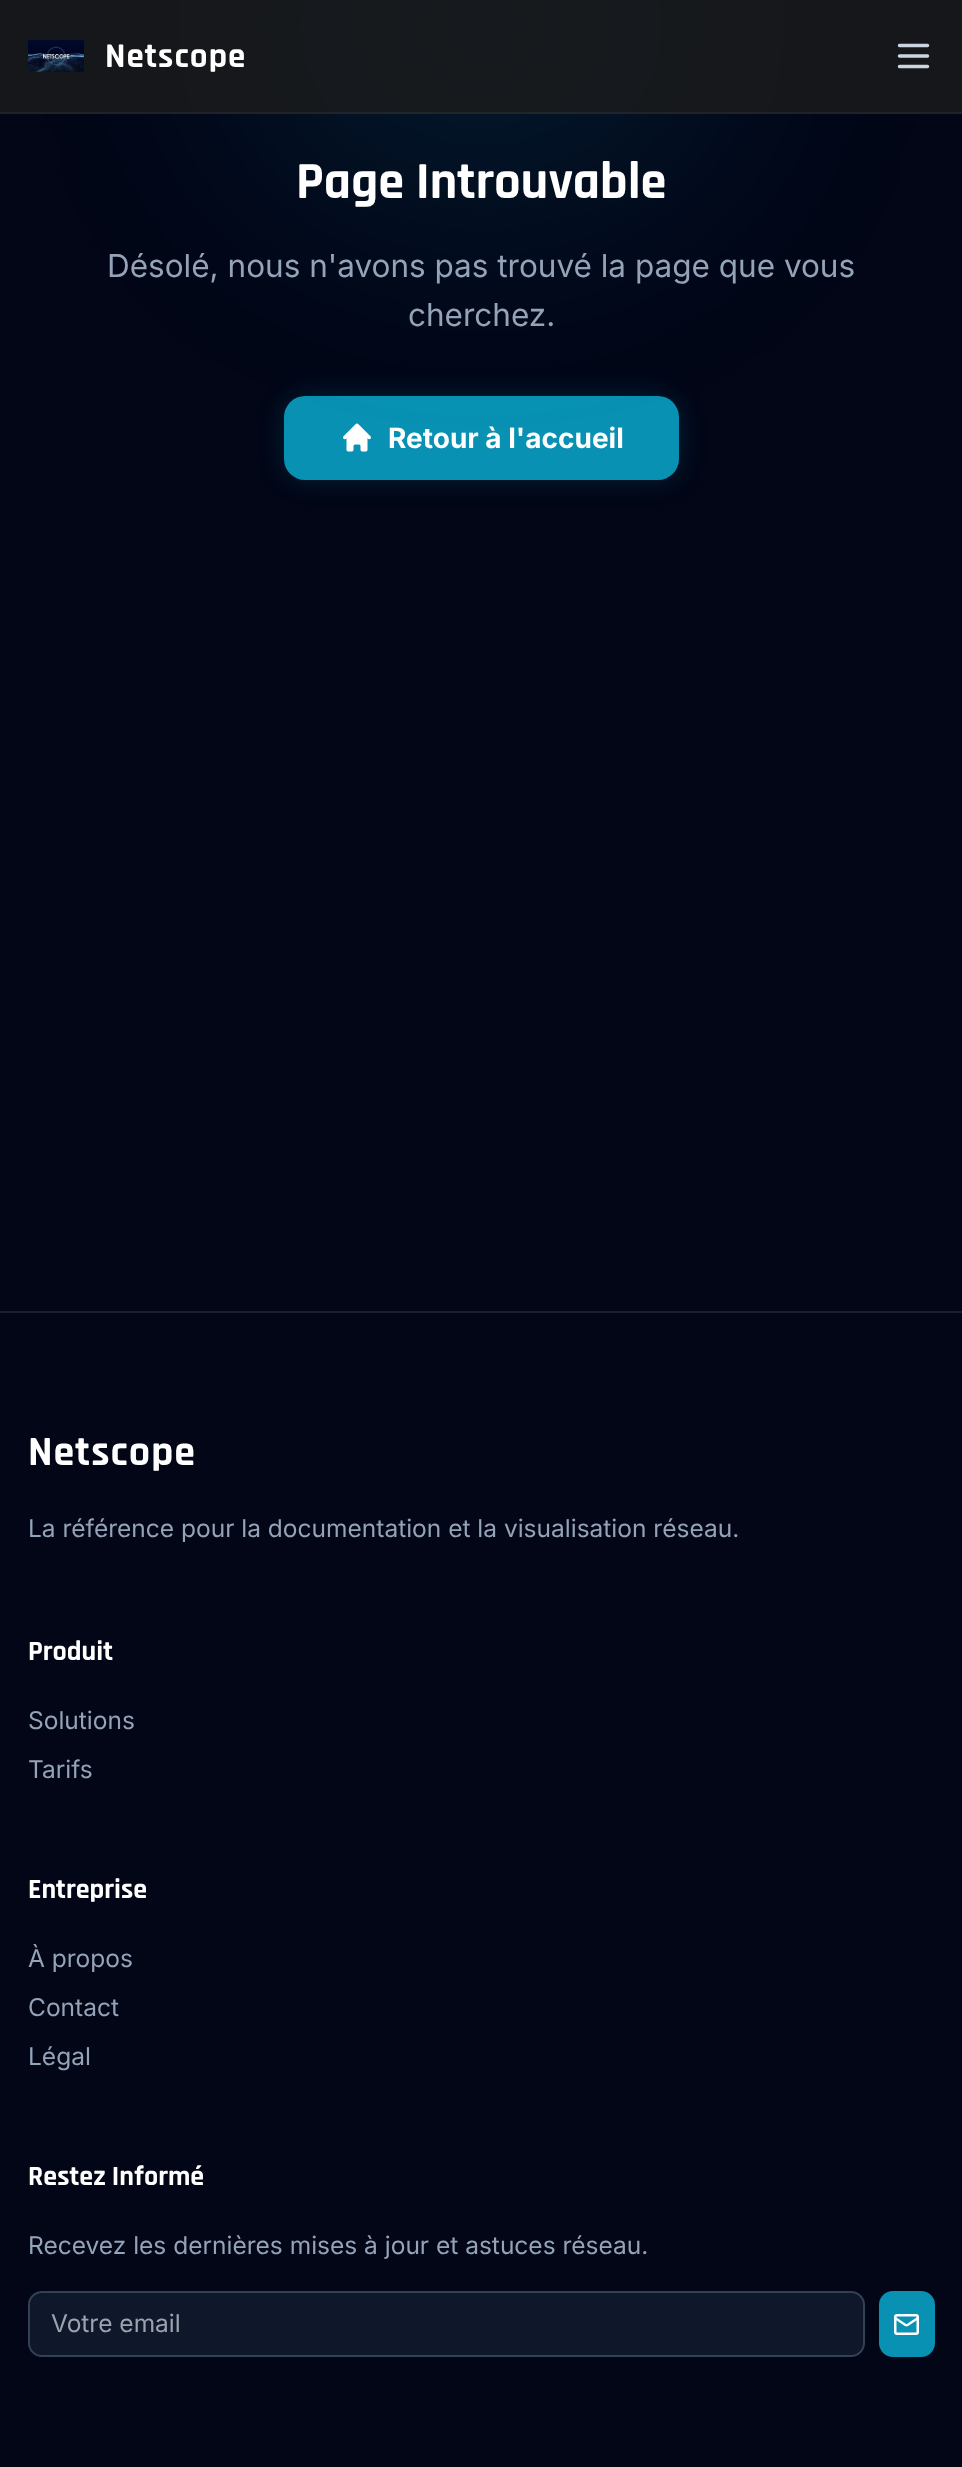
async function draw(canvas) {
  canvas.width = 962
  canvas.height = 2467
  const ctx = canvas.getContext('2d')
  ctx.miterLimit = 4
  ctx.fontKerning = 'normal'
  async function loadImage(src) {
    const img = new Image()
    img.src = src
    await img.decode()
    return img
  }

  ctx.fillStyle = '#020617'
  ctx.fillRect(0, 0, 962, 2467)
  ctx.fillStyle = '#0891b233'
  ctx.filter = 'blur(13px)'
  ctx.beginPath()
  ctx.roundRect(284, 396, 395, 84, 21)
  ctx.fill()
  ctx.filter = 'none'
  ctx.fillStyle = '#0891b2'
  ctx.beginPath()
  ctx.roundRect(284, 396, 395, 84, 21)
  ctx.fill()
  ctx.drawImage(await loadImage('image1.png'), 343, 423, 28, 29)
  ctx.fillStyle = '#06b6d41a'
  ctx.filter = 'blur(112px)'
  ctx.beginPath()
  ctx.roundRect(229, -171, 504, 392, 196)
  ctx.fill()
  ctx.filter = 'none'
  ctx.fillStyle = '#1c1c1ccc'
  ctx.fillRect(0, 0, 962, 114)
  ctx.fillStyle = '#ffffff0d'
  ctx.fillRect(0, 112, 962, 2)
  ctx.drawImage(await loadImage('image0.png'), 28, 40, 56, 32)
  ctx.letterSpacing = '1px'
  ctx.font = 'bold 35px Rajdhani'
  ctx.fillStyle = '#fff'
  ctx.fillText('Netscope', 105, 67)
  ctx.beginPath()
  ctx.moveTo(899.5, 45.5)
  ctx.lineTo(927.5, 45.5)
  ctx.moveTo(899.5, 56)
  ctx.lineTo(927.5, 56)
  ctx.moveTo(899.5, 66.5)
  ctx.lineTo(927.5, 66.5)
  ctx.strokeStyle = '#cbd5e1'
  ctx.lineWidth = 3.5
  ctx.lineCap = 'round'
  ctx.lineJoin = 'round'
  ctx.stroke()
  ctx.letterSpacing = '0px'
  ctx.font = 'bold 52.5px Rajdhani'
  ctx.fillText('Page Introuvable', 296, 198)
  ctx.font = '31.5px Inter'
  ctx.fillStyle = '#94a3b8'
  ctx.fillText('Désolé, nous n\'avons pas trouvé la page que vous', 107, 277)
  ctx.fillText('cherchez.', 408, 326)
  ctx.font = 'bold 28px Inter'
  ctx.fillStyle = '#fff'
  ctx.fillText('Retour à l\'accueil', 388, 448)
  ctx.fillStyle = '#1b1f2e'
  ctx.fillRect(0, 1311, 962, 2)
  ctx.letterSpacing = '1px'
  ctx.font = 'bold 42px Rajdhani'
  ctx.fillStyle = '#fff'
  ctx.fillText('Netscope', 28, 1465)
  ctx.letterSpacing = '0px'
  ctx.font = '24.5px Inter'
  ctx.fillStyle = '#94a3b8'
  ctx.fillText('La référence pour la documentation et la visualisation réseau.', 28, 1537)
  ctx.font = 'bold 28px Rajdhani'
  ctx.fillStyle = '#fff'
  ctx.fillText('Produit', 28, 1660)
  ctx.font = '24.5px Inter'
  ctx.fillStyle = '#94a3b8'
  ctx.fillText('Solutions', 28, 1729)
  ctx.fillText('Tarifs', 28, 1778)
  ctx.font = 'bold 28px Rajdhani'
  ctx.fillStyle = '#fff'
  ctx.fillText('Entreprise', 28, 1898)
  ctx.font = '24.5px Inter'
  ctx.fillStyle = '#94a3b8'
  ctx.fillText('À propos', 28, 1967)
  ctx.fillText('Contact', 28, 2016)
  ctx.fillText('Légal', 28, 2065)
  ctx.font = 'bold 28px Rajdhani'
  ctx.fillStyle = '#fff'
  ctx.fillText('Restez Informé', 28, 2185)
  ctx.font = '24.5px Inter'
  ctx.fillStyle = '#94a3b8'
  ctx.fillText('Recevez les dernières mises à jour et astuces réseau.', 28, 2254)
  ctx.fillStyle = '#0f172a'
  ctx.beginPath()
  ctx.roundRect(29, 2292, 835, 64, 13)
  ctx.fill()
  ctx.strokeStyle = '#334155'
  ctx.lineWidth = 2
  ctx.lineJoin = 'miter'
  ctx.stroke()
  ctx.fillStyle = '#9ca3af'
  ctx.fillText('Votre email', 51, 2332)
  ctx.fillStyle = '#0891b2'
  ctx.beginPath()
  ctx.roundRect(879, 2291, 56, 66, 14)
  ctx.fill()
  ctx.beginPath()
  ctx.moveTo(918, 2318)
  ctx.lineTo(907.5, 2325)
  ctx.bezierCurveTo(907, 2325.5, 906, 2325.5, 905.5, 2325)
  ctx.lineTo(895, 2318)
  ctx.strokeStyle = '#fff'
  ctx.lineWidth = 2.3
  ctx.lineJoin = 'round'
  ctx.stroke()
  ctx.beginPath()
  ctx.roundRect(895.25, 2315.25, 22.5, 18.5, 1.75)
  ctx.lineWidth = 2.5
  ctx.lineJoin = 'miter'
  ctx.stroke()
}

draw(document.querySelector('canvas'))
